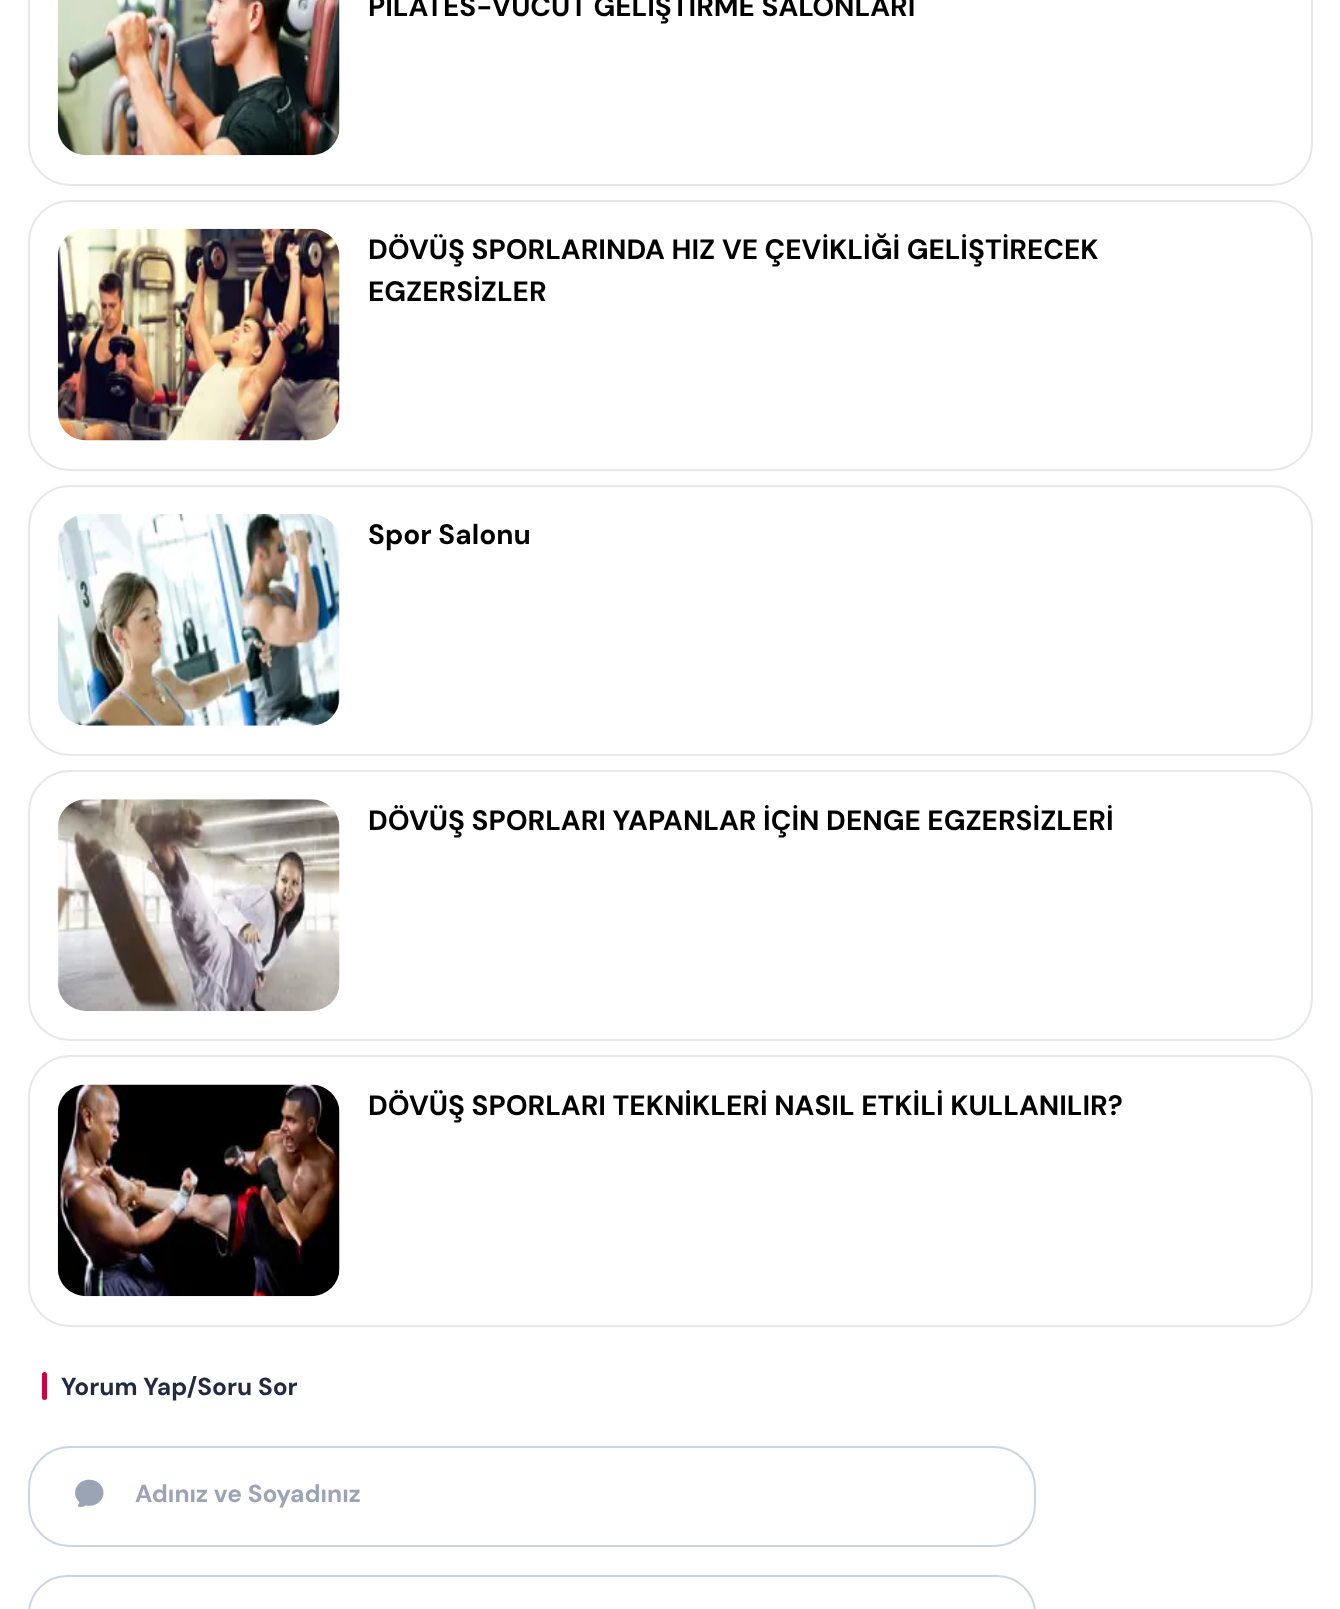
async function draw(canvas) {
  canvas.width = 1340
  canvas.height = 1609
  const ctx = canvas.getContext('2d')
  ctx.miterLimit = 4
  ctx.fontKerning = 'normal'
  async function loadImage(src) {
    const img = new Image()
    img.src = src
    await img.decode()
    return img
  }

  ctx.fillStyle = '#fff'
  ctx.fillRect(0, 0, 1340, 1609)
  ctx.beginPath()
  ctx.roundRect(29, -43, 1283, 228, 41)
  ctx.strokeStyle = '#e5e7eb'
  ctx.lineWidth = 2
  ctx.stroke()
  ctx.drawImage(await loadImage('image0.png'), 57, 0, 283, 156)
  ctx.font = 'bold 28px DM Sans'
  ctx.fillStyle = '#000'
  ctx.fillText('PILATES-VÜCUT GELİŞTİRME SALONLARI', 368, 16)
  ctx.beginPath()
  ctx.roundRect(29, 201, 1283, 269, 41)
  ctx.stroke()
  ctx.drawImage(await loadImage('image1.png'), 57, 228, 283, 213)
  ctx.fillText('DÖVÜŞ SPORLARINDA HIZ VE ÇEVİKLİĞİ GELİŞTİRECEK', 368, 259)
  ctx.fillText('EGZERSİZLER', 368, 301)
  ctx.beginPath()
  ctx.roundRect(29, 486, 1283, 269, 41)
  ctx.stroke()
  ctx.drawImage(await loadImage('image2.png'), 58, 514, 282, 212)
  ctx.fillText('Spor Salonu', 368, 544)
  ctx.beginPath()
  ctx.roundRect(29, 771, 1283, 269, 41)
  ctx.stroke()
  ctx.drawImage(await loadImage('image3.png'), 57, 799, 283, 212)
  ctx.fillText('DÖVÜŞ SPORLARI YAPANLAR İÇİN DENGE EGZERSİZLERİ', 368, 830)
  ctx.beginPath()
  ctx.roundRect(29, 1056, 1283, 270, 41)
  ctx.stroke()
  ctx.drawImage(await loadImage('image4.png'), 57, 1084, 283, 213)
  ctx.fillText('DÖVÜŞ SPORLARI TEKNİKLERİ NASIL ETKİLİ KULLANILIR?', 368, 1115)
  ctx.fillStyle = '#cd0241'
  ctx.beginPath()
  ctx.roundRect(42, 1372, 5, 28, 2.5)
  ctx.fill()
  ctx.font = 'bold 24.5px DM Sans'
  ctx.fillStyle = '#212a3e'
  ctx.fillText('Yorum Yap/Soru Sor', 61, 1395)
  ctx.beginPath()
  ctx.roundRect(29, 1447, 1006, 99, 41)
  ctx.strokeStyle = '#cbd5e1'
  ctx.stroke()
  ctx.drawImage(await loadImage('image5.png'), 75, 1479, 29, 28)
  ctx.fillStyle = '#9ba4b5'
  ctx.fillText('Adınız ve Soyadınız', 135, 1502)
  ctx.beginPath()
  ctx.roundRect(29, 1576, 1006, 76, 41)
  ctx.stroke()
}

draw(document.querySelector('canvas'))
